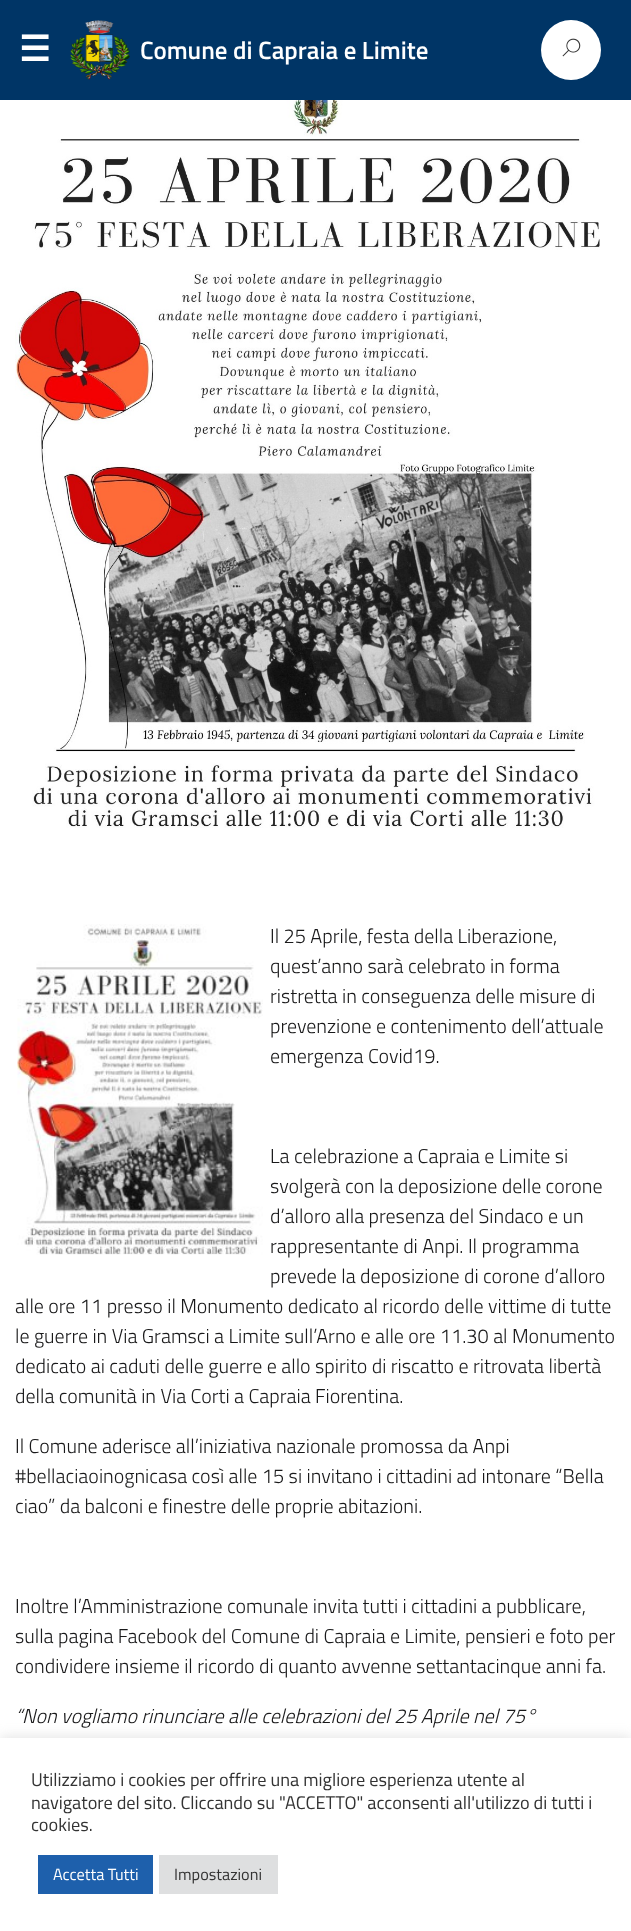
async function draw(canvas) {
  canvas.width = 631
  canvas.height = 1931
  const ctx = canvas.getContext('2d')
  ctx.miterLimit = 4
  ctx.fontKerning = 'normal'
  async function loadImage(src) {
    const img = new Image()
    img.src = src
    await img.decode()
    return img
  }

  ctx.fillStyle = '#fff'
  ctx.fillRect(0, 0, 631, 1931)
  ctx.fillStyle = '#003566'
  ctx.fillRect(0, 0, 631, 100)
  ctx.font = 'bold 35px DejaVu Sans'
  ctx.fillStyle = '#fff'
  ctx.fillText('☰', 19, 61)
  ctx.drawImage(await loadImage('image0.png'), 70, 20, 60, 60)
  ctx.font = '600 25px Titillium Web'
  ctx.fillText('Comune di Capraia e Limite', 140, 59)
  ctx.beginPath()
  ctx.arc(571, 50, 30, 0, 2 * Math.PI)
  ctx.fill()
  ctx.drawImage(await loadImage('image1.png'), 562, 38, 19, 19)
  ctx.drawImage(await loadImage('image2.png'), 15, 100, 585, 728)
  ctx.drawImage(await loadImage('image3.png'), 17, 924, 246, 331)
  ctx.font = '300 20px Titillium Web'
  ctx.fillStyle = '#19191a'
  ctx.fillText('Il 25 Aprile, festa della Liberazione,', 270, 943)
  ctx.fillText('quest’anno sarà celebrato in forma', 270, 973)
  ctx.fillText('ristretta in conseguenza delle misure di', 270, 1003)
  ctx.fillText('prevenzione e contenimento dell’attuale', 270, 1033)
  ctx.fillText('emergenza Covid19.', 270, 1063)
  ctx.fillText('La celebrazione a Capraia e Limite si', 270, 1163)
  ctx.fillText('svolgerà con la deposizione delle corone', 270, 1193)
  ctx.fillText('d’alloro alla presenza del Sindaco e un', 270, 1223)
  ctx.fillText('rappresentante di Anpi. Il programma', 270, 1253)
  ctx.fillText('prevede la deposizione di corone d’alloro', 270, 1283)
  ctx.fillText('alle ore 11 presso il Monumento dedicato al ricordo delle vittime di tutte', 15, 1313)
  ctx.fillText('le guerre in Via Gramsci a Limite sull’Arno e alle ore 11.30 al Monumento', 15, 1343)
  ctx.fillText('dedicato ai caduti delle guerre e allo spirito di riscatto e ritrovata libertà', 15, 1373)
  ctx.fillText('della comunità in Via Corti a Capraia Fiorentina.', 15, 1403)
  ctx.fillText('Il Comune aderisce all’iniziativa nazionale promossa da Anpi', 15, 1453)
  ctx.fillText('#bellaciaoinognicasa così alle 15 si invitano i cittadini ad intonare “Bella', 15, 1483)
  ctx.fillText('ciao” da balconi e finestre delle proprie abitazioni.', 15, 1513)
  ctx.fillText('Inoltre l’Amministrazione comunale invita tutti i cittadini a pubblicare,', 15, 1613)
  ctx.fillText('sulla pagina Facebook del Comune di Capraia e Limite, pensieri e foto per', 15, 1643)
  ctx.fillText('condividere insieme il ricordo di quanto avvenne settantacinque anni fa.', 15, 1673)
  ctx.font = 'italic 300 20px Titillium Web'
  ctx.fillText('“Non vogliamo rinunciare alle celebrazioni del 25 Aprile nel 75°', 15, 1723)
  ctx.fillStyle = '#acabab4d'
  ctx.filter = 'blur(6px)'
  ctx.beginPath()
  ctx.rect(0, 1736, 631, 194)
  ctx.fill()
  ctx.filter = 'none'
  ctx.fillStyle = '#fff'
  ctx.fillRect(0, 1738, 631, 193)
  ctx.font = '18.3px Titillium Web'
  ctx.fillStyle = '#333'
  ctx.fillText('Utilizziamo i cookies per offrire una migliore esperienza utente al', 31, 1786)
  ctx.fillText('navigatore del sito. Cliccando su "ACCETTO" acconsenti all\'utilizzo di tutti i', 31, 1809)
  ctx.fillText('cookies.', 31, 1831)
  ctx.fillStyle = '#1e60ac'
  ctx.fillRect(38, 1855, 115, 39)
  ctx.font = '16.25px Titillium Web'
  ctx.fillStyle = '#fff'
  ctx.fillText('Accetta Tutti', 53, 1880)
  ctx.fillStyle = '#dedfe0'
  ctx.fillRect(159, 1855, 119, 39)
  ctx.fillStyle = '#333'
  ctx.fillText('Impostazioni', 174, 1880)
}

draw(document.querySelector('canvas'))
